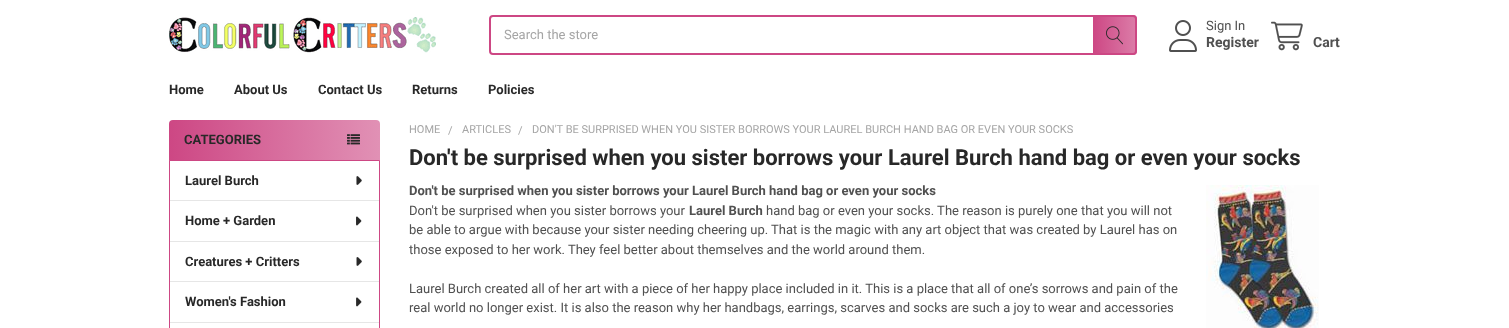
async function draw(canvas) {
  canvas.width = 1509
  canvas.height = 328
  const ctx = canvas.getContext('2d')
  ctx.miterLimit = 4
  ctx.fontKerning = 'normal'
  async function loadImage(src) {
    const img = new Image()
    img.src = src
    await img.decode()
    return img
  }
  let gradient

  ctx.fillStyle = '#fff'
  ctx.fillRect(0, 0, 1509, 328)
  ctx.drawImage(await loadImage('image0.png'), 169, 17, 267, 36)
  ctx.beginPath()
  ctx.roundRect(490, 16, 646, 38, 3)
  ctx.strokeStyle = '#cd4784'
  ctx.lineWidth = 2
  ctx.stroke()
  ctx.font = '13px Roboto'
  ctx.fillStyle = '#a5a5a5'
  ctx.fillText('Search the store', 504, 39)
  gradient = ctx.createLinearGradient(1093, 35, 1137, 35)
  gradient.addColorStop(0, '#cd4784')
  gradient.addColorStop(1, '#cd4784b3')
  ctx.fillStyle = gradient
  ctx.beginPath()
  ctx.roundRect(1093, 15, 44, 40, [0, 4, 4, 0])
  ctx.fill()
  ctx.drawImage(await loadImage('image1.png'), 1106, 26, 17, 19)
  ctx.drawImage(await loadImage('image2.png'), 1169, 20, 28, 32)
  ctx.fillStyle = '#505050'
  ctx.fillText('Sign In', 1206, 30)
  ctx.font = 'bold 14px Roboto'
  ctx.fillText('Register', 1206, 47)
  ctx.drawImage(await loadImage('image3.png'), 1271, 21, 32, 30)
  ctx.fillText('Cart', 1313, 47)
  ctx.font = 'bold 13px Roboto'
  ctx.fillStyle = '#282828'
  ctx.fillText('Home', 169, 94)
  ctx.fillText('About Us', 234, 94)
  ctx.fillText('Contact Us', 318, 94)
  ctx.fillText('Returns', 412, 94)
  ctx.fillText('Policies', 488, 94)
  gradient = ctx.createLinearGradient(169, 242, 380, 242)
  gradient.addColorStop(0, '#cd4784')
  gradient.addColorStop(1, '#e191b5')
  ctx.fillStyle = gradient
  ctx.beginPath()
  ctx.roundRect(169, 120, 211, 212, 4)
  ctx.fill()
  ctx.fillStyle = '#282828'
  ctx.fillText('CATEGORIES', 184, 144)
  ctx.drawImage(await loadImage('image4.png'), 347, 134, 13, 11)
  ctx.fillStyle = '#fff'
  ctx.beginPath()
  ctx.rect(169.5, 160.5, 210, 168)
  ctx.fill()
  ctx.lineWidth = 1
  ctx.stroke()
  ctx.fillStyle = '#282828'
  ctx.fillText('Laurel Burch', 185, 185)
  ctx.drawImage(await loadImage('image5.png'), 356, 176, 6, 9)
  ctx.fillStyle = '#e6e6e6'
  ctx.fillRect(170, 200, 209, 1)
  ctx.fillStyle = '#282828'
  ctx.fillText('Home + Garden', 185, 225)
  ctx.drawImage(await loadImage('image6.png'), 356, 216, 6, 10)
  ctx.fillStyle = '#e6e6e6'
  ctx.fillRect(170, 241, 209, 1)
  ctx.fillStyle = '#282828'
  ctx.fillText('Creatures + Critters', 185, 266)
  ctx.drawImage(await loadImage('image7.png'), 356, 257, 6, 9)
  ctx.fillStyle = '#e6e6e6'
  ctx.fillRect(170, 281, 209, 1)
  ctx.fillStyle = '#282828'
  ctx.fillText('Women\'s Fashion', 185, 306)
  ctx.drawImage(await loadImage('image8.png'), 356, 297, 6, 10)
  ctx.fillStyle = '#e6e6e6'
  ctx.fillRect(170, 322, 209, 1)
  ctx.font = '11px Roboto'
  ctx.fillStyle = '#a5a5a5'
  ctx.fillText('HOME', 409, 133)
  ctx.fillText('/', 448, 134)
  ctx.fillText('ARTICLES', 462, 133)
  ctx.fillText('/', 518, 134)
  ctx.fillText('DON\'T BE SURPRISED WHEN YOU SISTER BORROWS YOUR LAUREL BURCH HAND BAG OR EVEN YOUR SOCKS', 532, 133)
  ctx.font = 'bold 22px Roboto'
  ctx.fillStyle = '#282828'
  ctx.fillText('Don\'t be surprised when you sister borrows your Laurel Burch hand bag or even your socks', 409, 165)
  ctx.font = 'bold 13px Roboto'
  ctx.fillStyle = '#505050'
  ctx.fillText('Don\'t be surprised when you sister borrows your Laurel Burch hand bag or even your socks', 409, 195)
  ctx.drawImage(await loadImage('image9.png'), 1206, 185, 113, 143)
  ctx.font = '13px Roboto'
  ctx.fillText('Don\'t be surprised when you sister borrows your', 409, 215)
  ctx.font = 'bold 13px Roboto'
  ctx.fillText('Laurel Burch', 689, 215)
  ctx.font = '13px Roboto'
  ctx.fillText('hand bag or even your socks. The reason is purely one that you will not', 766, 215)
  ctx.fillText('be able to argue with because your sister needing cheering up. That is the magic with any art object that was created by Laurel has on', 409, 234)
  ctx.fillText('those exposed to her work. They feel better about themselves and the world around them.', 409, 254)
  ctx.fillText('Laurel Burch created all of her art with a piece of her happy place included in it. This is a place that all of one’s sorrows and pain of the', 409, 293)
  ctx.fillText('real world no longer exist. It is also the reason why her handbags, earrings, scarves and socks are such a joy to wear and accessories', 409, 312)
}

draw(document.querySelector('canvas'))
